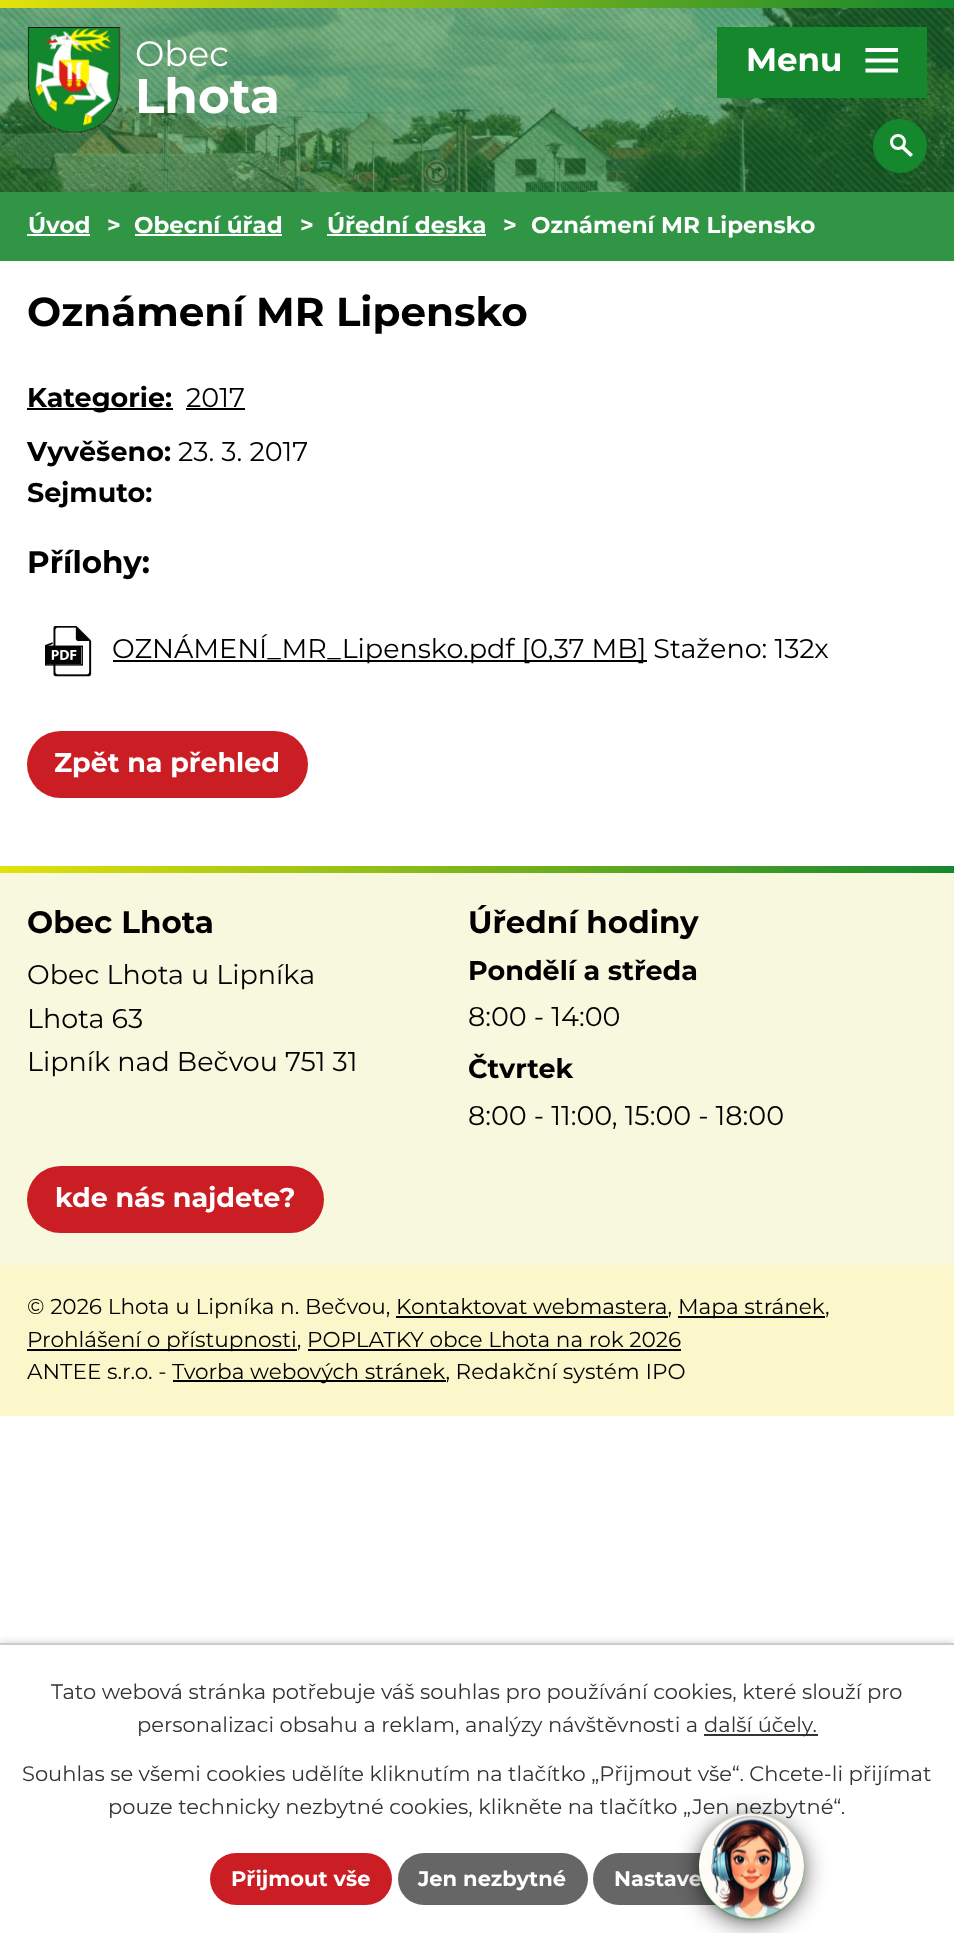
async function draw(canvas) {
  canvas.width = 954
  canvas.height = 1933
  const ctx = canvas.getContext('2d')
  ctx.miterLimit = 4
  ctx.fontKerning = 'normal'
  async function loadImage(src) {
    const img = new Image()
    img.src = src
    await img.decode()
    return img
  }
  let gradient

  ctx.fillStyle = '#fff'
  ctx.fillRect(0, 0, 954, 1933)
  ctx.drawImage(await loadImage('image0.png'), 0, 8, 954, 184)
  ctx.drawImage(await loadImage('image1.png'), 0, 8, 954, 184)
  gradient = ctx.createLinearGradient(954, 3.7, 0, 3.8)
  gradient.addColorStop(0, '#15872e')
  gradient.addColorStop(1, '#e2e20a')
  ctx.fillStyle = gradient
  ctx.fillRect(0, 0, 954, 8)
  ctx.drawImage(await loadImage('image2.png'), 27, 27, 95, 107)
  ctx.font = '35px Montserrat'
  ctx.fillStyle = '#fff'
  ctx.fillText('Obec', 135, 66)
  ctx.font = 'bold 48.5px Montserrat'
  ctx.fillText('Lhota', 135, 113)
  ctx.fillStyle = '#15872d'
  ctx.beginPath()
  ctx.arc(900, 146, 26, 0, 2 * Math.PI)
  ctx.fill()
  ctx.strokeStyle = '#15872d'
  ctx.lineWidth = 2
  ctx.stroke()
  ctx.beginPath()
  ctx.arc(898, 142, 6.5, 0, 2 * Math.PI)
  ctx.strokeStyle = '#fff'
  ctx.lineWidth = 3
  ctx.stroke()
  ctx.fillStyle = '#fff'
  ctx.beginPath()
  ctx.moveTo(904, 146)
  ctx.lineTo(913, 154.5)
  ctx.lineTo(910.5, 157)
  ctx.lineTo(901.5, 148.5)
  ctx.closePath()
  ctx.fill()
  ctx.fillStyle = '#15872d'
  ctx.fillRect(717, 27, 210, 71)
  ctx.font = 'bold 32.5px Montserrat'
  ctx.fillStyle = '#fff'
  ctx.fillText('Menu', 746, 71)
  ctx.beginPath()
  ctx.moveTo(865.5, 72.5)
  ctx.lineTo(865.5, 68.5)
  ctx.lineTo(898, 68.5)
  ctx.lineTo(898, 72.5)
  ctx.closePath()
  ctx.moveTo(865.5, 48)
  ctx.lineTo(898, 48)
  ctx.lineTo(898, 52)
  ctx.lineTo(865.5, 52)
  ctx.closePath()
  ctx.moveTo(865.5, 62.5)
  ctx.lineTo(865.5, 58.5)
  ctx.lineTo(898, 58.5)
  ctx.lineTo(898, 62.5)
  ctx.closePath()
  ctx.fill()
  ctx.fillStyle = '#319546'
  ctx.fillRect(0, 192, 954, 69)
  ctx.font = 'bold 23px Montserrat'
  ctx.fillStyle = '#fff'
  ctx.fillText('Úvod', 28, 233)
  ctx.fillRect(27, 234, 63, 2)
  ctx.fillText('>', 107, 233)
  ctx.fillText('Obecní úřad', 134, 233)
  ctx.fillRect(135, 234, 147, 2)
  ctx.fillText('>', 300, 233)
  ctx.fillText('Úřední deska', 327, 233)
  ctx.fillRect(327, 234, 159, 2)
  ctx.fillText('>', 503, 233)
  ctx.fillText('Oznámení MR Lipensko', 531, 233)
  ctx.font = 'bold 40.5px Montserrat'
  ctx.fillStyle = '#000'
  ctx.fillText('Oznámení MR Lipensko', 27, 326)
  ctx.fillRect(27, 408, 146, 2)
  ctx.font = 'bold 27px Montserrat'
  ctx.fillText('Kategorie:', 27, 407)
  ctx.font = '27px Montserrat'
  ctx.fillText('2017', 186, 407)
  ctx.fillRect(186, 408, 59, 2)
  ctx.font = 'bold 27px Montserrat'
  ctx.fillText('Vyvěšeno:', 27, 461)
  ctx.font = '27px Montserrat'
  ctx.fillText('23. 3. 2017', 178, 461)
  ctx.font = 'bold 27px Montserrat'
  ctx.fillText('Sejmuto:', 27, 502)
  ctx.font = 'bold 31px Montserrat'
  ctx.fillText('Přílohy:', 27, 573)
  ctx.drawImage(await loadImage('image3.png'), 45, 626, 47, 51)
  ctx.fillRect(113, 660, 534, 2)
  ctx.font = '27px Montserrat'
  ctx.fillText('OZNÁMENÍ_MR_Lipensko.pdf [0,37 MB] Staženo: 132x', 112, 658)
  ctx.fillStyle = '#cb1e24'
  ctx.beginPath()
  ctx.roundRect(27, 731, 281, 67, 33.5)
  ctx.fill()
  ctx.font = 'bold 27px Montserrat'
  ctx.fillStyle = '#fff'
  ctx.fillText('Zpět na přehled', 54, 772)
  ctx.fillStyle = '#f8f8de'
  ctx.fillRect(0, 873, 954, 392)
  gradient = ctx.createLinearGradient(954, 869, 0, 869)
  gradient.addColorStop(0, '#15872e')
  gradient.addColorStop(1, '#e2e20a')
  ctx.fillStyle = gradient
  ctx.fillRect(0, 866, 954, 7)
  ctx.font = 'bold 31px Montserrat'
  ctx.fillStyle = '#000'
  ctx.fillText('Obec Lhota', 27, 933)
  ctx.font = '27px Montserrat'
  ctx.fillText('Obec Lhota u Lipníka', 27, 984)
  ctx.fillText('Lhota 63', 27, 1028)
  ctx.fillText('Lipník nad Bečvou 751 31', 27, 1071)
  ctx.font = 'bold 31px Montserrat'
  ctx.fillText('Úřední hodiny', 468, 933)
  ctx.font = 'bold 27px Montserrat'
  ctx.fillText('Pondělí a středa', 468, 980)
  ctx.font = '27px Montserrat'
  ctx.fillText('8:00 - 14:00', 468, 1026)
  ctx.font = 'bold 27px Montserrat'
  ctx.fillText('Čtvrtek', 468, 1078)
  ctx.font = '27px Montserrat'
  ctx.fillText('8:00 - 11:00, 15:00 - 18:00', 468, 1125)
  ctx.fillStyle = '#cb1e24'
  ctx.beginPath()
  ctx.roundRect(27, 1166, 297, 67, 33.5)
  ctx.fill()
  ctx.font = 'bold 27px Montserrat'
  ctx.fillStyle = '#fff'
  ctx.fillText('kde nás najdete?', 55, 1207)
  ctx.fillStyle = '#fcf7cb'
  ctx.fillRect(0, 1265, 954, 151)
  ctx.font = '21.6px Montserrat'
  ctx.fillStyle = '#000'
  ctx.fillText('© 2026 Lhota u Lipníka n. Bečvou, Kontaktovat webmastera,', 27, 1314)
  ctx.fillRect(678, 1316, 147, 2)
  ctx.fillText('Mapa stránek,', 678, 1314)
  ctx.fillRect(396, 1316, 272, 2)
  ctx.fillRect(27, 1349, 270, 2)
  ctx.fillText('Prohlášení o přístupnosti, POPLATKY obce Lhota na rok 2026', 27, 1347)
  ctx.fillRect(308, 1349, 373, 2)
  ctx.fillText('ANTEE s.r.o. -', 27, 1379)
  ctx.fillRect(173, 1380, 273, 2)
  ctx.fillText('Tvorba webových stránek, Redakční systém IPO', 172, 1379)
  ctx.fillStyle = '#00000033'
  ctx.filter = 'blur(4px)'
  ctx.beginPath()
  ctx.rect(0, 1643, 954, 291)
  ctx.fill()
  ctx.filter = 'none'
  ctx.fillStyle = '#fff'
  ctx.fillRect(0, 1645, 954, 288)
  ctx.fillStyle = '#ccc'
  ctx.fillRect(0, 1643, 954, 2)
  ctx.font = '21px Montserrat'
  ctx.fillStyle = '#333'
  ctx.fillText('Tato webová stránka potřebuje váš souhlas pro používání cookies, které slouží pro', 51, 1699)
  ctx.fillText('personalizaci obsahu a reklam, analýzy návštěvnosti a', 137, 1732)
  ctx.fillRect(704, 1734, 114, 2)
  ctx.fillText('další účely.', 704, 1732)
  ctx.fillText('Souhlas se všemi cookies udělíte kliknutím na tlačítko „Přijmout vše“. Chcete-li přijímat', 22, 1781)
  ctx.fillText('pouze technicky nezbytné cookies, klikněte na tlačítko „Jen nezbytné“.', 108, 1814)
  ctx.fillStyle = '#cb1e24'
  ctx.beginPath()
  ctx.roundRect(210, 1853, 182, 52, 26)
  ctx.fill()
  ctx.font = 'bold 21px Montserrat'
  ctx.fillStyle = '#fff'
  ctx.fillText('Přijmout vše', 231, 1886)
  ctx.fillStyle = '#666'
  ctx.beginPath()
  ctx.roundRect(398, 1853, 190, 52, 26)
  ctx.fill()
  ctx.fillStyle = '#fff'
  ctx.fillText('Jen nezbytné', 418, 1886)
  ctx.fillStyle = '#666'
  ctx.beginPath()
  ctx.roundRect(593, 1853, 151, 52, 26)
  ctx.fill()
  ctx.fillStyle = '#fff'
  ctx.fillText('Nastave', 614, 1886)
  ctx.fillStyle = '#0000001f'
  ctx.filter = 'blur(4px)'
  ctx.beginPath()
  ctx.roundRect(699, 1815, 105, 105, 52.5)
  ctx.fill()
  ctx.filter = 'none'
  ctx.fillStyle = '#00000033'
  ctx.filter = 'blur(1px)'
  ctx.beginPath()
  ctx.roundRect(702, 1821, 99, 99, 49.5)
  ctx.fill()
  ctx.filter = 'none'
  ctx.fillStyle = '#00000099'
  ctx.filter = 'blur(12px)'
  ctx.beginPath()
  ctx.roundRect(699, 1818, 105, 105, 52.5)
  ctx.fill()
  ctx.filter = 'none'
  ctx.fillStyle = '#099f13'
  ctx.beginPath()
  ctx.arc(751.5, 1866.5, 52.5, 0, 2 * Math.PI)
  ctx.fill()
  ctx.drawImage(await loadImage('image4.png'), 699, 1813, 105, 106)
}

draw(document.querySelector('canvas'))
